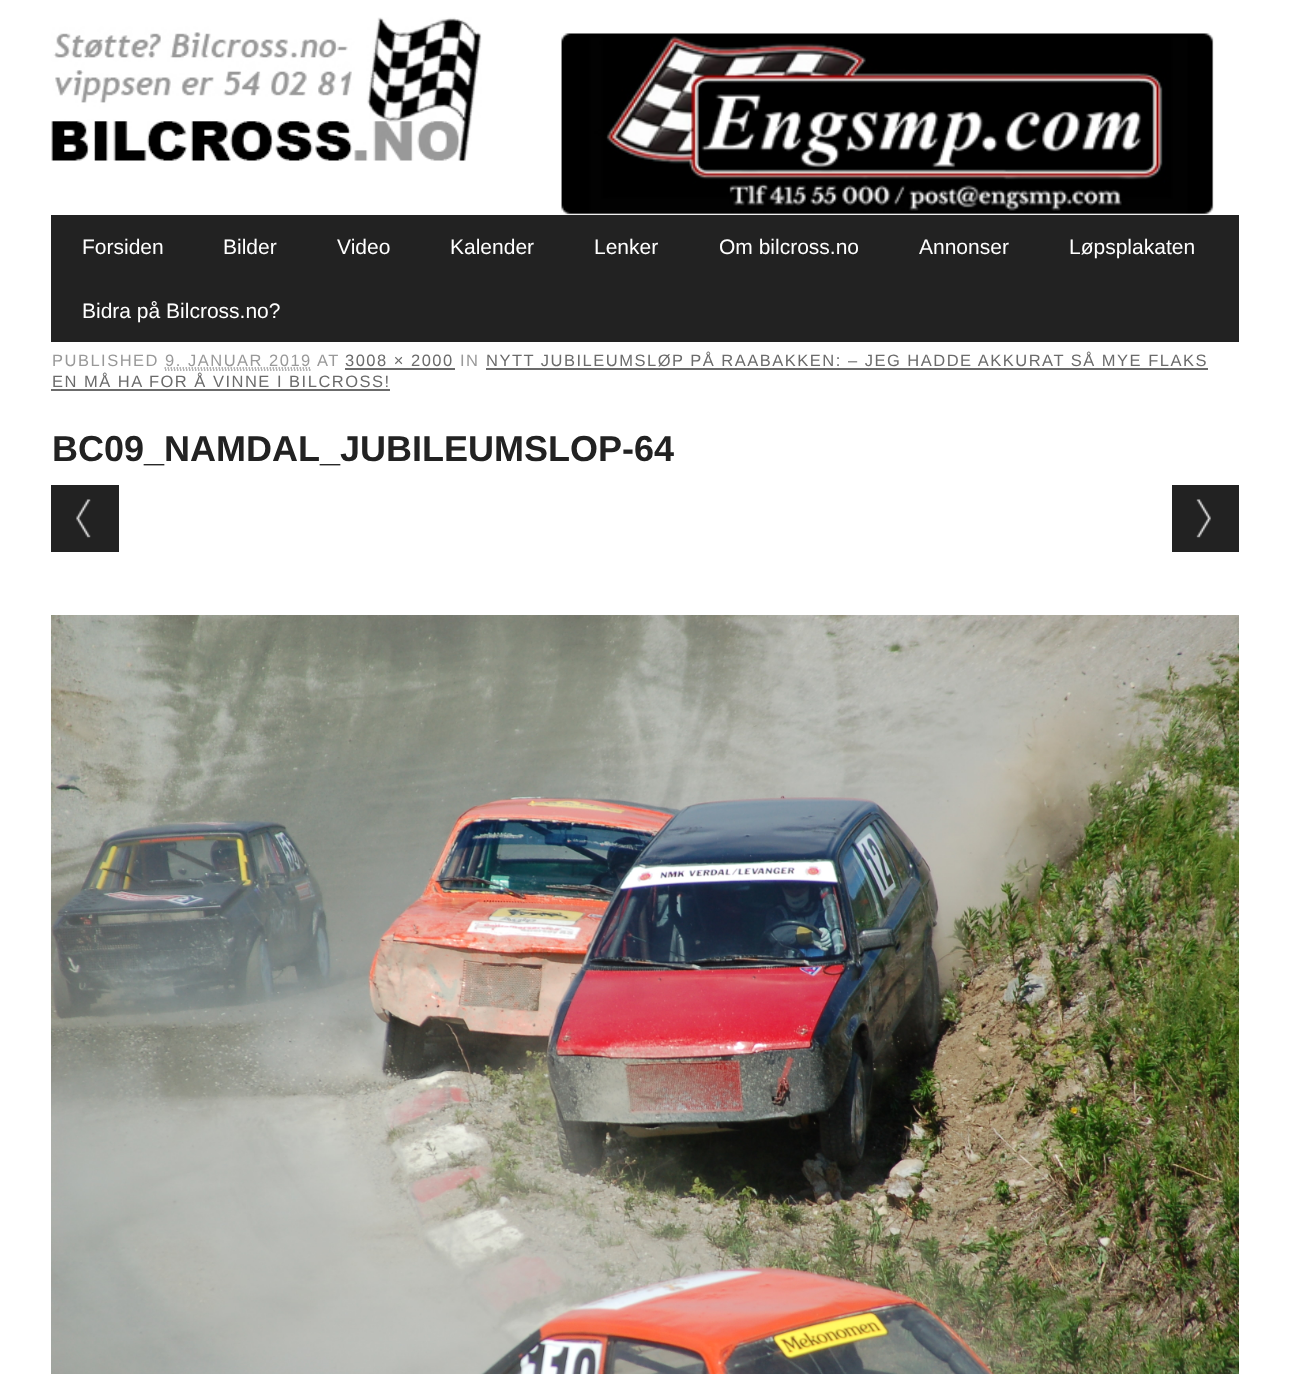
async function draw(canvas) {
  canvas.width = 1290
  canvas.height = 1374
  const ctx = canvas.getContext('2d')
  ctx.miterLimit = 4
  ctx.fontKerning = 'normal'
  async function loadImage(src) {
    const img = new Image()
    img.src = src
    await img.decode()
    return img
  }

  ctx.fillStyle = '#fff'
  ctx.fillRect(0, 0, 1290, 1374)
  ctx.drawImage(await loadImage('image0.png'), 51, 17, 431, 144)
  ctx.drawImage(await loadImage('image1.png'), 561, 33, 653, 182)
  ctx.fillStyle = '#222'
  ctx.fillRect(51, 215, 1188, 127)
  ctx.font = '21px Liberation Sans'
  ctx.fillStyle = '#fff'
  ctx.fillText('Forsiden', 82, 254)
  ctx.fillText('Bilder', 223, 254)
  ctx.fillText('Video', 337, 254)
  ctx.fillText('Kalender', 450, 254)
  ctx.fillText('Lenker', 594, 254)
  ctx.fillText('Om bilcross.no', 719, 254)
  ctx.fillText('Annonser', 919, 254)
  ctx.fillText('Løpsplakaten', 1069, 254)
  ctx.fillText('Bidra på Bilcross.no?', 82, 318)
  ctx.letterSpacing = '1.5px'
  ctx.font = '16.5px Liberation Sans'
  ctx.fillStyle = '#999'
  ctx.fillText('PUBLISHED 9. JANUAR 2019', 52, 366)
  ctx.fillText('AT', 317, 366)
  ctx.fillStyle = '#6b6b6b'
  ctx.fillText('3008 × 2000', 345, 366)
  ctx.fillRect(345, 368, 110, 2)
  ctx.fillStyle = '#999'
  ctx.fillText('IN', 460, 366)
  ctx.fillStyle = '#6b6b6b'
  ctx.fillText('NYTT JUBILEUMSLØP PÅ RAABAKKEN: – JEG HADDE AKKURAT SÅ MYE FLAKS', 486, 366)
  ctx.fillRect(486, 368, 722, 2)
  ctx.beginPath()
  ctx.moveTo(164.5, 368)
  ctx.lineTo(311.5, 368)
  ctx.strokeStyle = '#999'
  ctx.lineWidth = 1.5
  ctx.setLineDash([1.5, 1.5])
  ctx.stroke()
  ctx.beginPath()
  ctx.moveTo(165, 370)
  ctx.lineTo(312, 370)
  ctx.stroke()
  ctx.fillText('EN MÅ HA FOR Å VINNE I BILCROSS!', 52, 387)
  ctx.fillRect(51, 389, 339, 2)
  ctx.letterSpacing = '0px'
  ctx.font = 'bold 36px Liberation Sans'
  ctx.fillStyle = '#222'
  ctx.fillText('BC09_NAMDAL_JUBILEUMSLOP-64', 52, 461)
  ctx.fillRect(51, 485, 68, 67)
  ctx.drawImage(await loadImage('image2.png'), 76, 499, 15, 39)
  ctx.fillRect(1172, 485, 67, 67)
  ctx.drawImage(await loadImage('image3.png'), 1196, 499, 15, 39)
  ctx.drawImage(await loadImage('image4.png'), 51, 615, 1188, 759)
}

draw(document.querySelector('canvas'))
